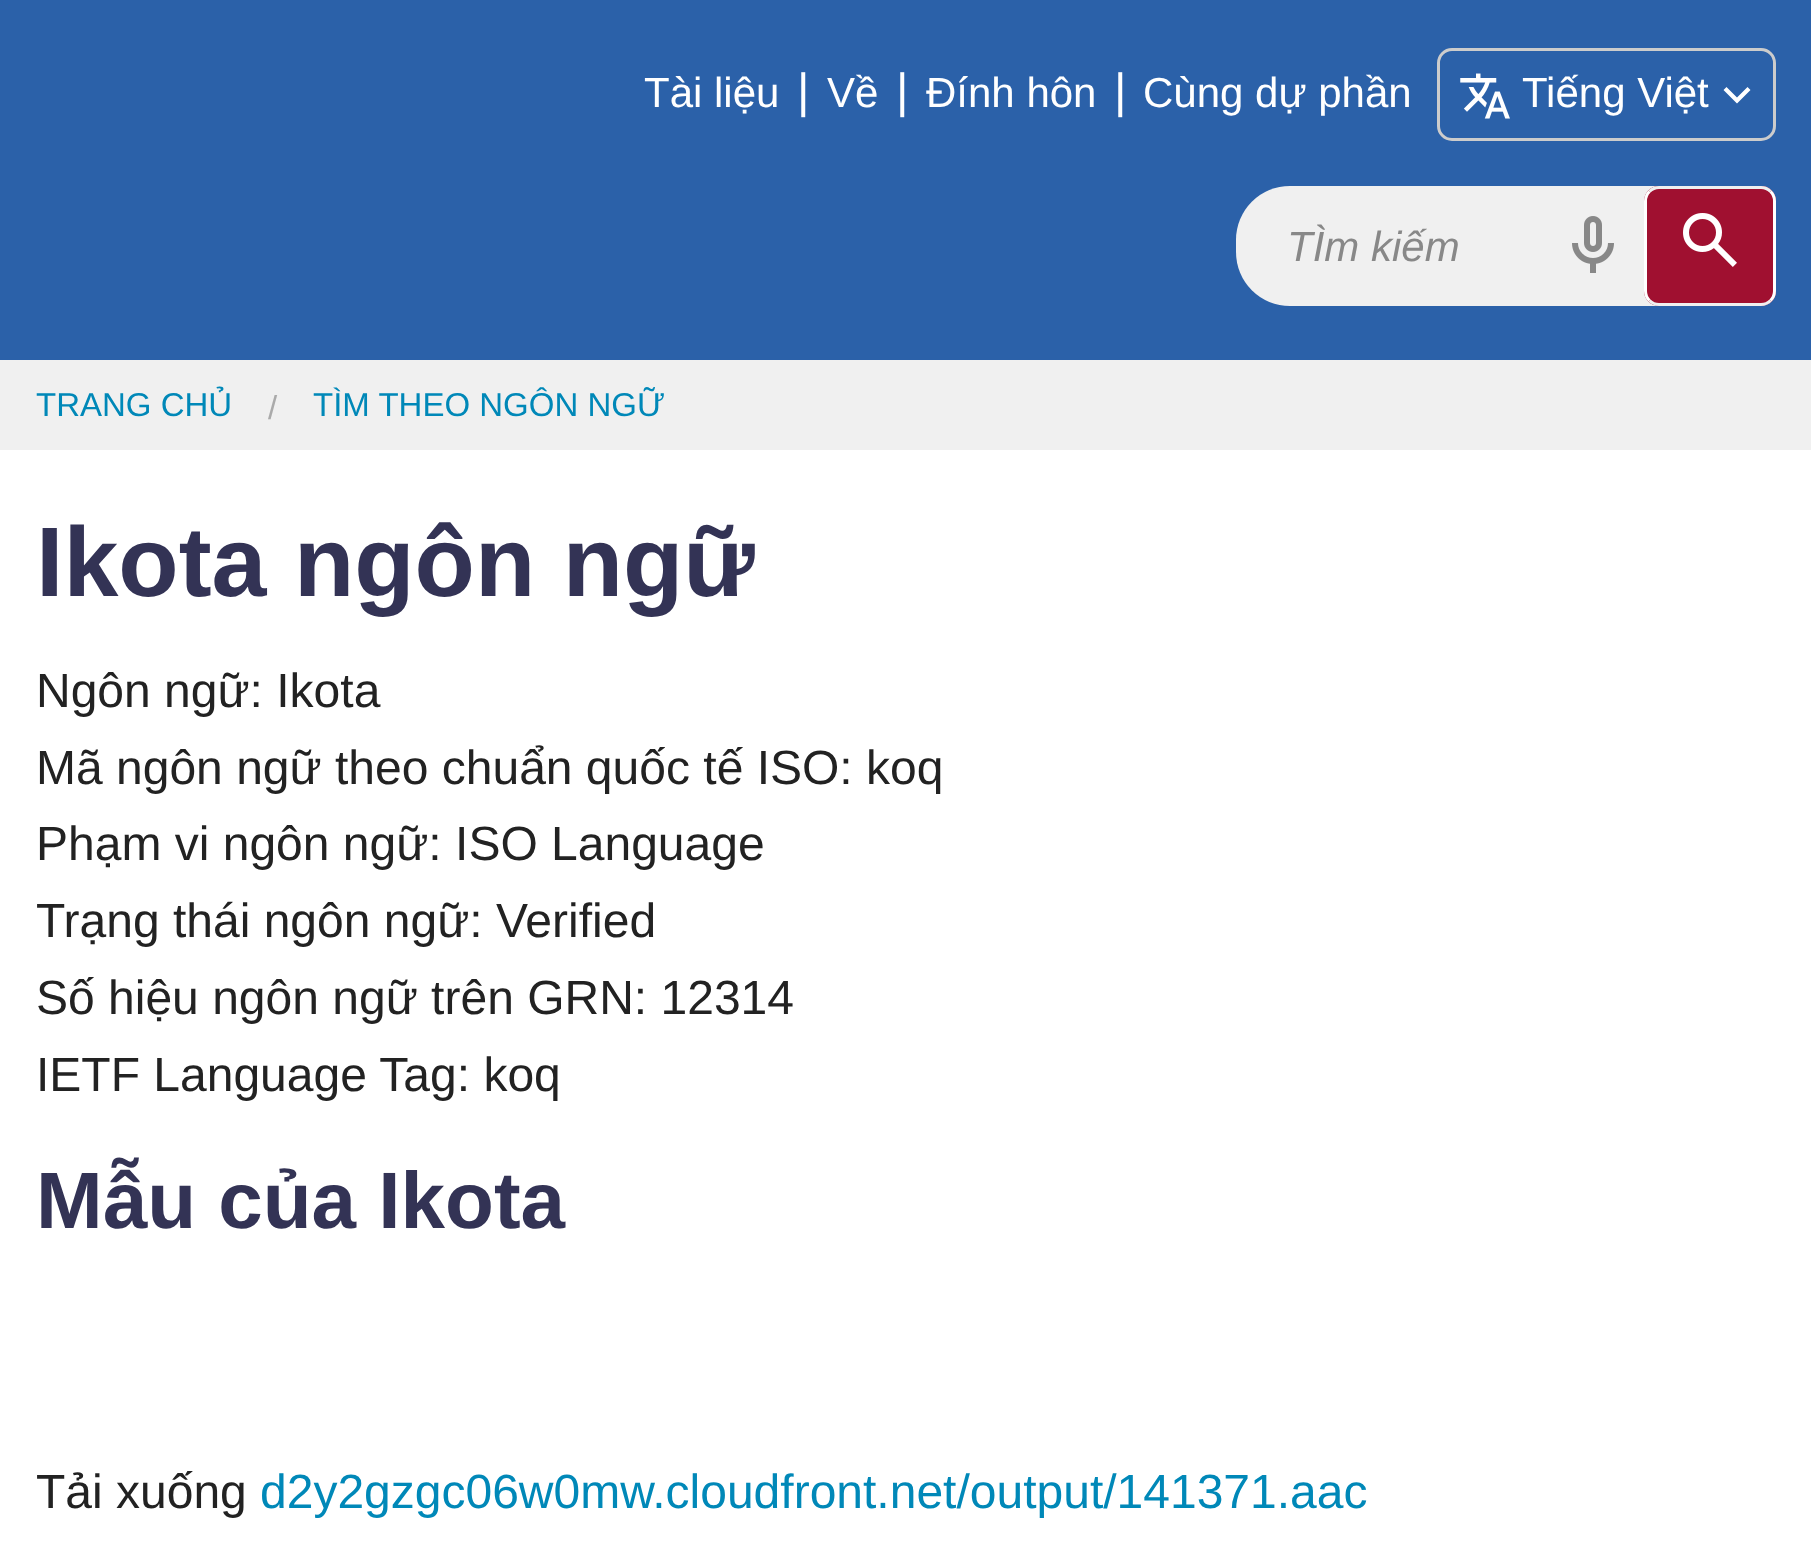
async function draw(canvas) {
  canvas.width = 1811
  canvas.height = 1566
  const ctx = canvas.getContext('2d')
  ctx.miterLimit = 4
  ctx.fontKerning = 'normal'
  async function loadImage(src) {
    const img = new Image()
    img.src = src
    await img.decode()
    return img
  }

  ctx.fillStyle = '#fff'
  ctx.fillRect(0, 0, 1811, 1566)
  ctx.fillStyle = '#2b61a9'
  ctx.fillRect(0, 0, 1811, 360)
  ctx.font = '42px Liberation Sans'
  ctx.fillStyle = '#fff'
  ctx.fillText('Tài liệu', 644, 107)
  ctx.font = '48px Liberation Sans'
  ctx.fillText('|', 797, 107)
  ctx.font = '42px Liberation Sans'
  ctx.fillText('Về', 827, 107)
  ctx.font = '48px Liberation Sans'
  ctx.fillText('|', 896, 107)
  ctx.font = '42px Liberation Sans'
  ctx.fillText('Đính hôn', 926, 107)
  ctx.font = '48px Liberation Sans'
  ctx.fillText('|', 1114, 107)
  ctx.font = '42px Liberation Sans'
  ctx.fillText('Cùng dự phần', 1143, 107)
  ctx.beginPath()
  ctx.roundRect(1438.5, 49.5, 336, 90, 13.5)
  ctx.strokeStyle = '#ccc'
  ctx.lineWidth = 3
  ctx.stroke()
  ctx.drawImage(await loadImage('image0.png'), 1460, 73, 50, 46)
  ctx.fillText('Tiếng Việt', 1522, 107)
  ctx.beginPath()
  ctx.moveTo(1737, 103.5)
  ctx.lineTo(1723.5, 90)
  ctx.lineTo(1726.5, 87)
  ctx.lineTo(1737, 97.5)
  ctx.lineTo(1747.5, 87)
  ctx.lineTo(1750.5, 90)
  ctx.closePath()
  ctx.fill()
  ctx.fillStyle = '#f0f0f0'
  ctx.beginPath()
  ctx.roundRect(1236, 186, 540, 120, [54, 15, 15, 54])
  ctx.fill()
  ctx.fillRect(1272, 302, 1, 1)
  ctx.font = 'italic 42px Liberation Sans'
  ctx.fillStyle = '#888'
  ctx.fillText('TÌm kiếm', 1287, 261)
  ctx.drawImage(await loadImage('image1.png'), 1572, 216, 42, 57)
  ctx.fillStyle = '#a01030'
  ctx.beginPath()
  ctx.roundRect(1644, 186, 132, 120, 15)
  ctx.fill()
  ctx.beginPath()
  ctx.moveTo(1649.5, 191.5)
  ctx.bezierCurveTo(1652, 189, 1655.5, 187.5, 1659, 187.5)
  ctx.lineTo(1761, 187.5)
  ctx.bezierCurveTo(1764.5, 187.5, 1768, 189, 1770.5, 191.5)
  ctx.strokeStyle = '#f0f0f0'
  ctx.stroke()
  ctx.beginPath()
  ctx.moveTo(1770.5, 191.5)
  ctx.bezierCurveTo(1773, 194, 1774.5, 197.5, 1774.5, 201)
  ctx.lineTo(1774.5, 291)
  ctx.bezierCurveTo(1774.5, 294.5, 1773, 298, 1770.5, 300.5)
  ctx.strokeStyle = '#fff'
  ctx.stroke()
  ctx.beginPath()
  ctx.moveTo(1770.5, 300.5)
  ctx.bezierCurveTo(1768, 303, 1764.5, 304.5, 1761, 304.5)
  ctx.lineTo(1659, 304.5)
  ctx.bezierCurveTo(1655.5, 304.5, 1652, 303, 1649.5, 300.5)
  ctx.strokeStyle = '#f0f0f0'
  ctx.stroke()
  ctx.beginPath()
  ctx.moveTo(1649.5, 300.5)
  ctx.bezierCurveTo(1647, 298, 1645.5, 294.5, 1645.5, 291)
  ctx.lineTo(1645.5, 201)
  ctx.bezierCurveTo(1645.5, 197.5, 1647, 194, 1649.5, 191.5)
  ctx.strokeStyle = '#fff'
  ctx.stroke()
  ctx.drawImage(await loadImage('image2.png'), 1683, 213, 54, 54)
  ctx.fillStyle = '#f0f0f0'
  ctx.fillRect(0, 360, 1811, 90)
  ctx.font = '33px Liberation Sans'
  ctx.fillStyle = '#0088b8'
  ctx.fillText('TRANG CHỦ', 36, 416)
  ctx.fillStyle = '#aaa'
  ctx.fillText('/', 268, 419)
  ctx.fillStyle = '#0088b8'
  ctx.fillText('TÌM THEO NGÔN NGỮ', 313, 416)
  ctx.font = 'bold 98.75px Liberation Sans'
  ctx.fillStyle = '#335'
  ctx.fillText('Ikota ngôn ngữ', 36, 596)
  ctx.font = '48px Liberation Sans'
  ctx.fillStyle = '#222'
  ctx.fillText('Ngôn ngữ: Ikota', 36, 707)
  ctx.fillText('Mã ngôn ngữ theo chuẩn quốc tế ISO: koq', 36, 784)
  ctx.fillText('Phạm vi ngôn ngữ: ISO Language', 36, 860)
  ctx.fillText('Trạng thái ngôn ngữ: Verified', 36, 937)
  ctx.fillText('Số hiệu ngôn ngữ trên GRN: 12314', 36, 1014)
  ctx.fillText('IETF Language Tag: koq', 36, 1091)
  ctx.font = 'bold 80px Liberation Sans'
  ctx.fillStyle = '#335'
  ctx.fillText('Mẫu của Ikota', 36, 1228)
  ctx.font = '48px Liberation Sans'
  ctx.fillStyle = '#222'
  ctx.fillText('Tải xuống', 36, 1508)
  ctx.fillStyle = '#0088b8'
  ctx.fillText('d2y2gzgc06w0mw.cloudfront.net/output/141371.aac', 260, 1508)
}

draw(document.querySelector('canvas'))
